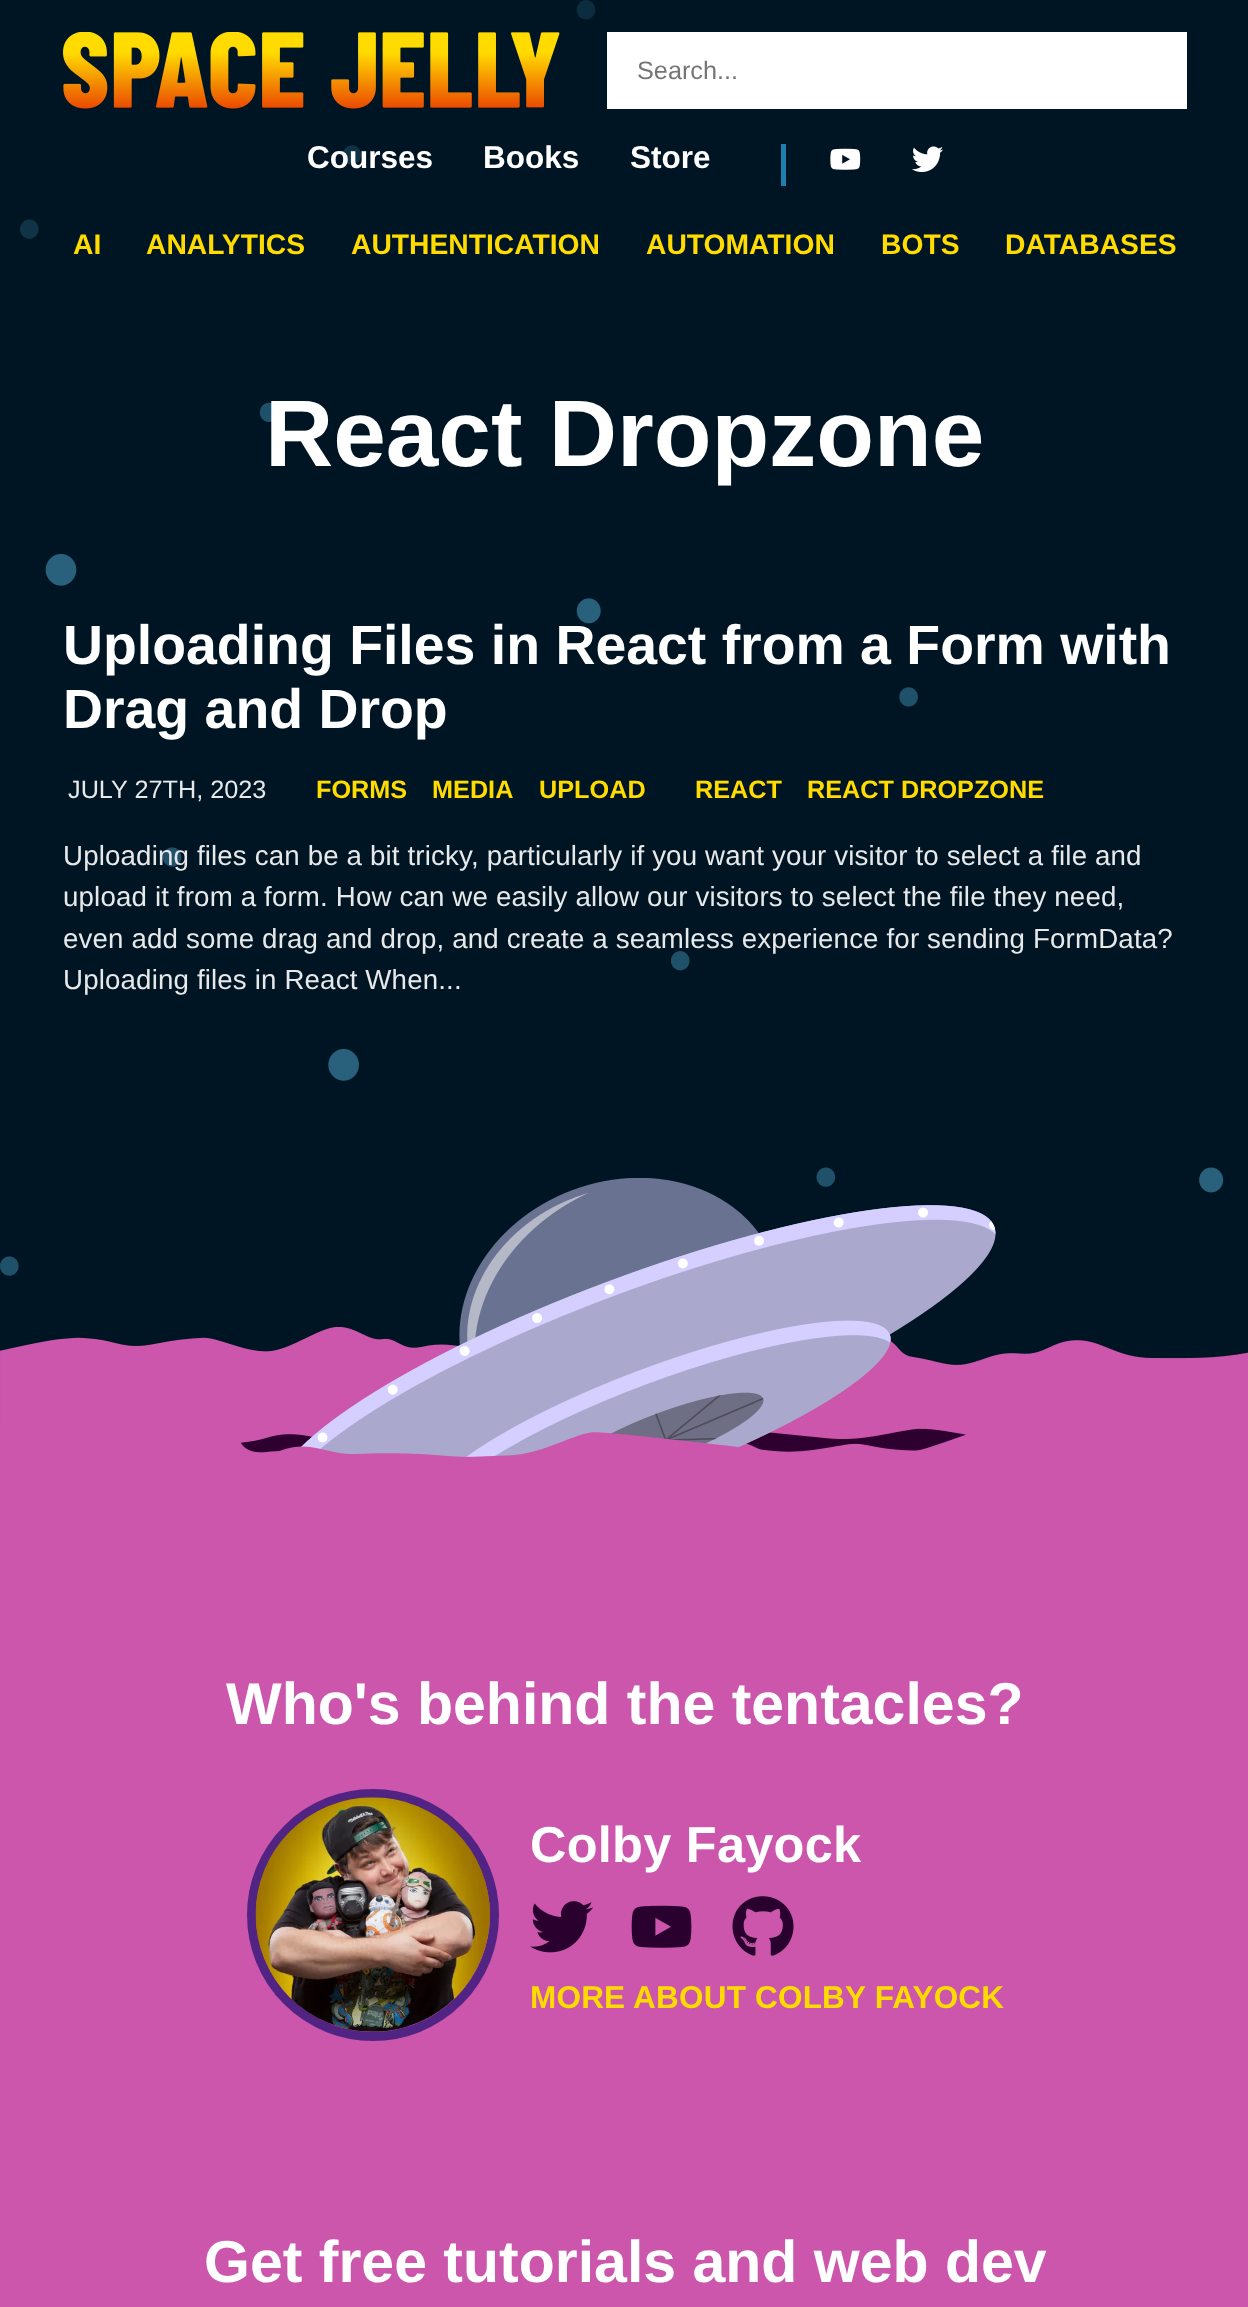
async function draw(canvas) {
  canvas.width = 1248
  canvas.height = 2307
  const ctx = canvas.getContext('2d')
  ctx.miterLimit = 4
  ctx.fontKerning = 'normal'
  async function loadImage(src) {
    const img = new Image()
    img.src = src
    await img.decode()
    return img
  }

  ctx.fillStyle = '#001523'
  ctx.fillRect(0, 0, 1248, 2307)
  ctx.drawImage(await loadImage('image0.png'), 0, 0, 1224, 1276)
  ctx.fillStyle = '#00152399'
  ctx.fillRect(182, 0, 846, 165)
  ctx.drawImage(await loadImage('image1.png'), 63, 32, 497, 77)
  ctx.fillStyle = '#fff'
  ctx.fillRect(607, 32, 580, 77)
  ctx.font = '25.25px Liberation Sans'
  ctx.fillStyle = '#757575'
  ctx.fillText('Search...', 637, 79)
  ctx.font = 'bold 31.5px Liberation Sans'
  ctx.fillStyle = '#fff'
  ctx.fillText('Courses', 307, 168)
  ctx.fillText('Books', 483, 168)
  ctx.fillText('Store', 630, 168)
  ctx.fillStyle = '#1f7ead'
  ctx.fillRect(781, 144, 5, 42)
  ctx.drawImage(await loadImage('image2.png'), 830, 148, 31, 22)
  ctx.drawImage(await loadImage('image3.png'), 912, 146, 31, 26)
  ctx.fillStyle = '#00152399'
  ctx.fillRect(20, 219, 19, 20)
  ctx.font = 'bold 28.25px Liberation Sans'
  ctx.fillStyle = '#ffdb00'
  ctx.fillText('AI', 73, 254)
  ctx.fillText('ANALYTICS', 146, 254)
  ctx.fillText('AUTHENTICATION', 351, 254)
  ctx.fillText('AUTOMATION', 646, 254)
  ctx.fillText('BOTS', 881, 254)
  ctx.fillText('DATABASES', 1005, 254)
  ctx.font = 'bold 94.5px Liberation Sans'
  ctx.fillStyle = '#fff'
  ctx.fillText('React Dropzone', 265, 466)
  ctx.font = 'bold 55.4px Liberation Sans'
  ctx.fillText('Uploading Files in React from a Form with', 63, 664)
  ctx.fillText('Drag and Drop', 63, 728)
  ctx.font = '25.25px Liberation Sans'
  ctx.fillStyle = '#e6e8e9'
  ctx.fillText('JULY 27TH, 2023', 68, 798)
  ctx.font = 'bold 25.25px Liberation Sans'
  ctx.fillStyle = '#ffdb00'
  ctx.fillText('FORMS', 316, 798)
  ctx.fillText('MEDIA', 432, 798)
  ctx.fillText('UPLOAD', 539, 798)
  ctx.fillText('REACT', 695, 798)
  ctx.fillText('REACT DROPZONE', 807, 798)
  ctx.letterSpacing = '0.15px'
  ctx.font = '27.7px Liberation Sans'
  ctx.fillStyle = '#e6e8e9'
  ctx.fillText('Uploading files can be a bit tricky, particularly if you want your visitor to select a file and', 63, 865)
  ctx.fillText('upload it from a form. How can we easily allow our visitors to select the file they need,', 63, 906)
  ctx.fillText('even add some drag and drop, and create a seamless experience for sending FormData?', 63, 948)
  ctx.fillText('Uploading files in React When...', 63, 989)
  ctx.fillStyle = '#cb56ac'
  ctx.fillRect(0, 1428, 1248, 879)
  ctx.drawImage(await loadImage('image5.png'), 0, 1327, 1248, 101)
  ctx.drawImage(await loadImage('image4.png'), 240, 1178, 756, 279)
  ctx.letterSpacing = '0px'
  ctx.font = 'bold 59px Liberation Sans'
  ctx.fillStyle = '#fff'
  ctx.fillText('Who\'s behind the tentacles?', 226, 1724)
  ctx.beginPath()
  ctx.arc(373, 1915, 121.5, 0, 2 * Math.PI)
  ctx.strokeStyle = '#512382'
  ctx.lineWidth = 9
  ctx.stroke()
  ctx.drawImage(await loadImage('image6.png'), 255, 1797, 235, 235)
  ctx.letterSpacing = '0.25px'
  ctx.font = 'bold 50.5px Liberation Sans'
  ctx.fillText('Colby Fayock', 530, 1862)
  ctx.drawImage(await loadImage('image7.png'), 530, 1901, 63, 52)
  ctx.drawImage(await loadImage('image8.png'), 631, 1905, 61, 43)
  ctx.drawImage(await loadImage('image9.png'), 732, 1896, 62, 60)
  ctx.letterSpacing = '0.2px'
  ctx.font = 'bold 31.5px Liberation Sans'
  ctx.fillStyle = '#ffdb00'
  ctx.fillText('MORE ABOUT COLBY FAYOCK', 530, 2008)
  ctx.letterSpacing = '0px'
  ctx.font = 'bold 59px Liberation Sans'
  ctx.fillStyle = '#fff'
  ctx.fillText('Get free tutorials and web dev', 204, 2282)
}

draw(document.querySelector('canvas'))
